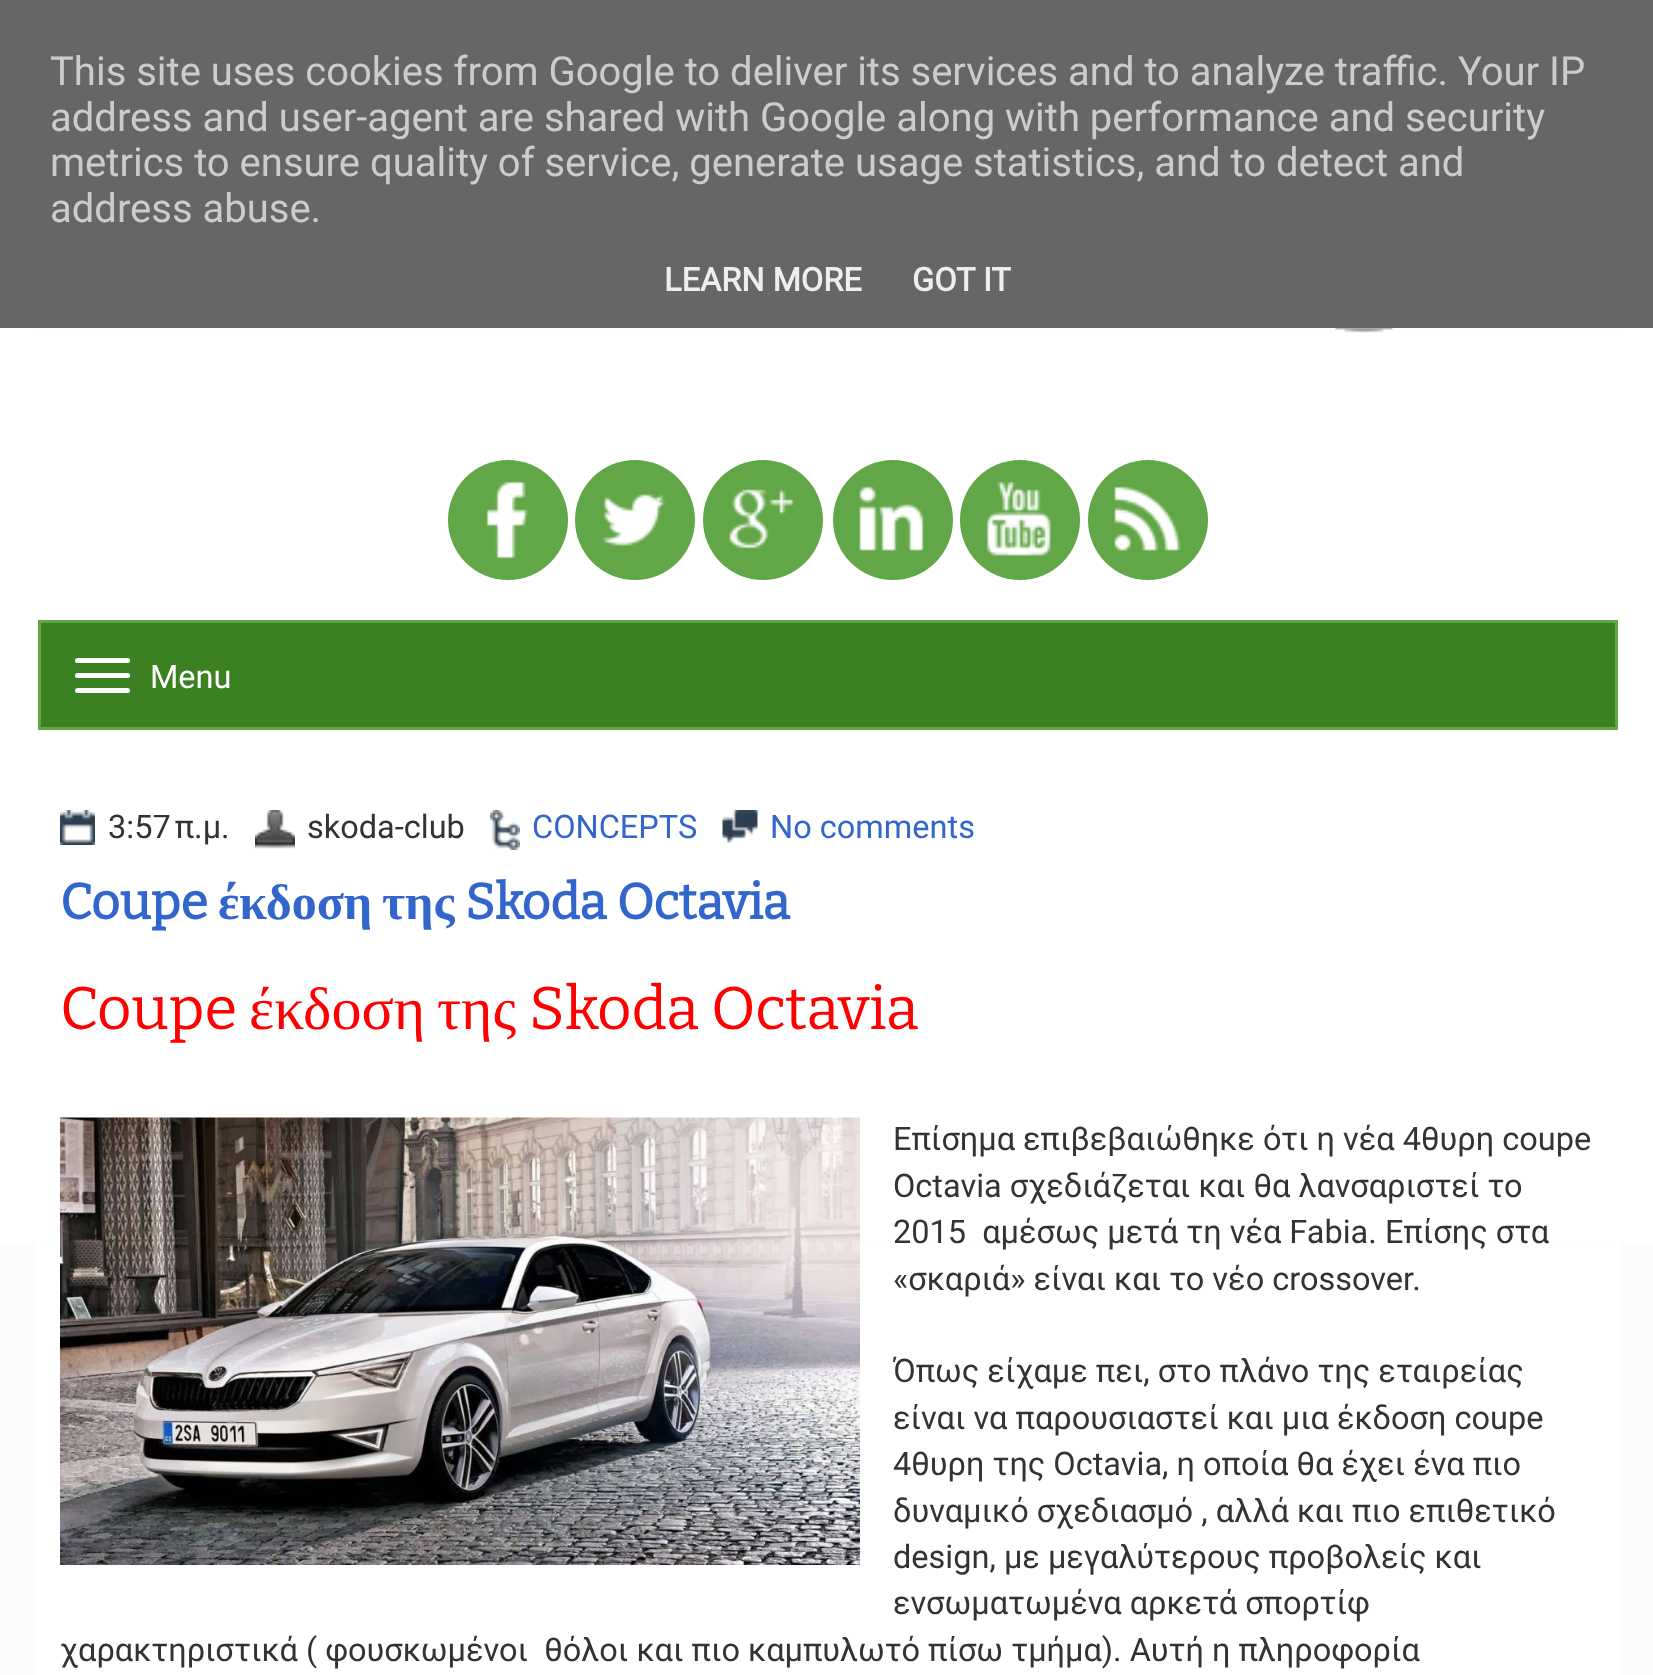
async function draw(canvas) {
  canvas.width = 1653
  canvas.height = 1675
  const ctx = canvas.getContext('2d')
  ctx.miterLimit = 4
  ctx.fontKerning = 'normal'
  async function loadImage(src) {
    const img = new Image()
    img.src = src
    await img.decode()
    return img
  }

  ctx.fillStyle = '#bdd9a9'
  ctx.fillRect(0, 0, 1653, 1675)
  ctx.drawImage(await loadImage('image0.png'), 0, 328, 1653, 916)
  ctx.fillStyle = '#666'
  ctx.fillRect(0, 0, 1653, 328)
  ctx.font = '40px Roboto'
  ctx.fillStyle = '#ccc'
  ctx.fillText('This site uses cookies from Google to deliver its services and to analyze traffic. Your IP', 50, 85)
  ctx.fillText('address and user-agent are shared with Google along with performance and security', 50, 131)
  ctx.fillText('metrics to ensure quality of service, generate usage statistics, and to detect and', 50, 176)
  ctx.fillText('address abuse.', 50, 222)
  ctx.font = 'bold 32.5px Roboto'
  ctx.fillStyle = '#eee'
  ctx.fillText('LEARN MORE', 664, 291)
  ctx.fillText('GOT IT', 912, 291)
  ctx.drawImage(await loadImage('image1.png'), 37, 328, 1581, 5)
  ctx.fillStyle = '#61a647'
  ctx.beginPath()
  ctx.arc(508, 520, 60, 0, 2 * Math.PI)
  ctx.fill()
  ctx.beginPath()
  ctx.arc(635, 520, 60, 0, 2 * Math.PI)
  ctx.fill()
  ctx.beginPath()
  ctx.arc(763, 520, 60, 0, 2 * Math.PI)
  ctx.fill()
  ctx.beginPath()
  ctx.arc(893, 520, 60, 0, 2 * Math.PI)
  ctx.fill()
  ctx.beginPath()
  ctx.arc(1020, 520, 60, 0, 2 * Math.PI)
  ctx.fill()
  ctx.beginPath()
  ctx.arc(1148, 520, 60, 0, 2 * Math.PI)
  ctx.fill()
  ctx.drawImage(await loadImage('image2.png'), 486, 481, 43, 78)
  ctx.drawImage(await loadImage('image3.png'), 602, 494, 64, 52)
  ctx.drawImage(await loadImage('image4.png'), 729, 489, 65, 60)
  ctx.drawImage(await loadImage('image5.png'), 859, 486, 65, 65)
  ctx.drawImage(await loadImage('image6.png'), 986, 481, 65, 75)
  ctx.drawImage(await loadImage('image7.png'), 1114, 486, 67, 65)
  ctx.fillStyle = '#3b8021'
  ctx.beginPath()
  ctx.rect(39.5, 621.5, 1577, 107)
  ctx.fill()
  ctx.strokeStyle = '#61a647'
  ctx.lineWidth = 3
  ctx.stroke()
  ctx.fillStyle = '#fff'
  ctx.beginPath()
  ctx.roundRect(75, 658, 55, 5, 2.5)
  ctx.fill()
  ctx.beginPath()
  ctx.roundRect(75, 673, 55, 5, 2.5)
  ctx.fill()
  ctx.font = '32.5px Roboto'
  ctx.fillText('Menu', 150, 688)
  ctx.beginPath()
  ctx.roundRect(75, 688, 55, 5, 2.5)
  ctx.fill()
  ctx.fillStyle = '#fffffff2'
  ctx.fillRect(0, 1240, 1653, 435)
  ctx.fillStyle = '#fff'
  ctx.fillRect(35, 1243, 1585, 432)
  ctx.drawImage(await loadImage('image8.png'), 60, 810, 35, 35)
  ctx.fillStyle = '#333'
  ctx.fillText('3:57 π.μ.', 108, 838)
  ctx.drawImage(await loadImage('image9.png'), 255, 810, 40, 39)
  ctx.fillText('skoda-club', 307, 838)
  ctx.drawImage(await loadImage('image10.png'), 490, 810, 30, 40)
  ctx.fillStyle = '#36c'
  ctx.fillText('CONCEPTS', 532, 838)
  ctx.drawImage(await loadImage('image11.png'), 722, 810, 36, 33)
  ctx.fillText('No comments', 770, 838)
  ctx.font = 'bold 50px Bitter'
  ctx.fillText('Coupe', 60, 919)
  ctx.font = 'bold 50px Liberation Serif'
  ctx.fillText('έκδοση', 218, 919)
  ctx.fillText('της', 382, 919)
  ctx.font = 'bold 50px Bitter'
  ctx.fillText('Skoda Octavia', 465, 919)
  ctx.font = '100 60px Bitter'
  ctx.fillStyle = '#f00'
  ctx.fillText('Coupe', 60, 1029)
  ctx.font = '60px Liberation Serif'
  ctx.fillText('έκδοση', 249, 1029)
  ctx.fillText('της', 437, 1029)
  ctx.font = '100 60px Bitter'
  ctx.fillText('Skoda Octavia', 529, 1029)
  ctx.drawImage(await loadImage('image12.png'), 60, 1117, 800, 448)
  ctx.font = '32.5px Roboto'
  ctx.fillStyle = '#333'
  ctx.fillText('Eπίσημα επιβεβαιώθηκε ότι η νέα 4θυρη coupe', 893, 1150)
  ctx.fillText('Octavia σχεδιάζεται και θα λανσαριστεί το', 893, 1197)
  ctx.fillText('2015  αμέσως μετά τη νέα Fabia. Eπίσης στα', 893, 1243)
  ctx.fillText('«σκαριά» είναι και το νέο crossover.', 893, 1290)
  ctx.fillText('Όπως είχαμε πει, στο πλάνο της εταιρείας', 893, 1382)
  ctx.fillText('είναι να παρουσιαστεί και μια έκδοση coupe', 893, 1429)
  ctx.fillText('4θυρη της Octavia, η οποία θα έχει ένα πιο', 893, 1475)
  ctx.fillText('δυναμικό σχεδιασμό , αλλά και πιο επιθετικό', 893, 1522)
  ctx.fillText('design, με μεγαλύτερους προβολείς και', 893, 1568)
  ctx.fillText('ενσωματωμένα αρκετά σπορτίφ', 893, 1614)
  ctx.fillText('χαρακτηριστικά ( φουσκωμένοι  θόλοι και πιο καμπυλωτό πίσω τμήμα). Αυτή η πληροφορία', 60, 1661)
}

draw(document.querySelector('canvas'))
